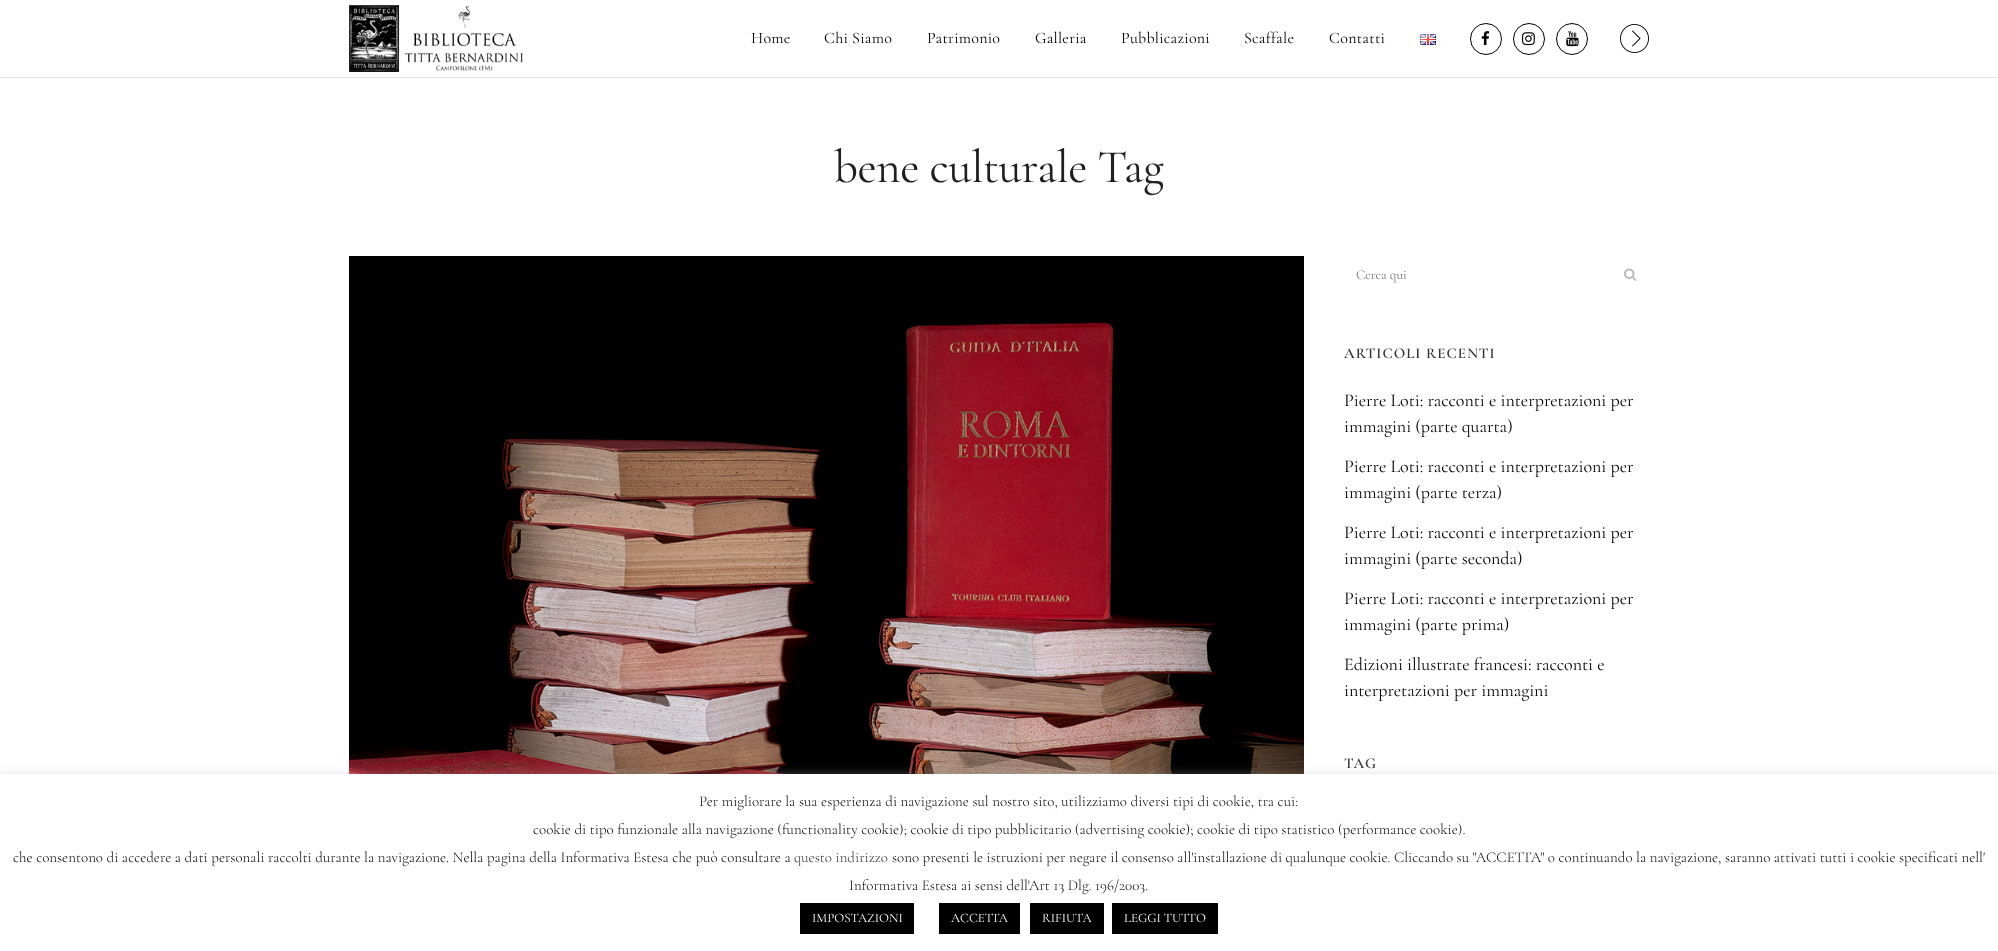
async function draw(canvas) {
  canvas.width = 1998
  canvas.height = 951
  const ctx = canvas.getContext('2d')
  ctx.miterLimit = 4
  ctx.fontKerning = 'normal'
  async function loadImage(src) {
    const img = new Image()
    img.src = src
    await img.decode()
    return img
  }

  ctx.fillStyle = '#fff'
  ctx.fillRect(0, 0, 1998, 951)
  ctx.fillStyle = '#e5e5e5'
  ctx.fillRect(0, 77, 1998, 1)
  ctx.drawImage(await loadImage('image0.png'), 349, 5, 174, 67)
  ctx.letterSpacing = '0.25px'
  ctx.font = '16px Cormorant Garamond'
  ctx.fillStyle = '#010101'
  ctx.fillText('Home', 751, 43)
  ctx.fillText('Chi Siamo', 824, 43)
  ctx.fillText('Patrimonio', 927, 43)
  ctx.fillText('Galleria', 1035, 43)
  ctx.fillText('Pubblicazioni', 1121, 43)
  ctx.fillText('Scaffale', 1244, 43)
  ctx.fillText('Contatti', 1329, 43)
  ctx.drawImage(await loadImage('image1.png'), 1420, 34, 16, 11)
  ctx.beginPath()
  ctx.arc(1486, 39, 15.5, 0, 2 * Math.PI)
  ctx.strokeStyle = '#000'
  ctx.stroke()
  ctx.drawImage(await loadImage('image2.png'), 1481, 31, 9, 15)
  ctx.beginPath()
  ctx.arc(1529, 39, 15.5, 0, 2 * Math.PI)
  ctx.stroke()
  ctx.drawImage(await loadImage('image3.png'), 1522, 32, 13, 14)
  ctx.beginPath()
  ctx.arc(1572, 39, 15.5, 0, 2 * Math.PI)
  ctx.stroke()
  ctx.drawImage(await loadImage('image4.png'), 1566, 31, 13, 16)
  ctx.drawImage(await loadImage('image5.png'), 1620, 24, 29, 29)
  ctx.letterSpacing = '-0.4px'
  ctx.font = '47px Cormorant Garamond'
  ctx.fillStyle = '#202020'
  ctx.fillText('bene culturale Tag', 834, 182)
  ctx.drawImage(await loadImage('image6.png'), 349, 256, 955, 518)
  ctx.letterSpacing = '0px'
  ctx.font = '13.5px Cormorant Garamond'
  ctx.fillStyle = '#757575'
  ctx.fillText('Cerca qui', 1356, 279)
  ctx.drawImage(await loadImage('image7.png'), 1624, 268, 13, 13)
  ctx.letterSpacing = '1px'
  ctx.font = '600 15px Cormorant Garamond'
  ctx.fillStyle = '#303030'
  ctx.fillText('ARTICOLI RECENTI', 1344, 358)
  ctx.letterSpacing = '0px'
  ctx.font = '18px Cormorant Garamond'
  ctx.fillStyle = '#010101'
  ctx.fillText('Pierre Loti: racconti e interpretazioni per', 1344, 406)
  ctx.fillText('immagini (parte quarta)', 1344, 432)
  ctx.fillText('Pierre Loti: racconti e interpretazioni per', 1344, 472)
  ctx.fillText('immagini (parte terza)', 1344, 498)
  ctx.fillText('Pierre Loti: racconti e interpretazioni per', 1344, 538)
  ctx.fillText('immagini (parte seconda)', 1344, 564)
  ctx.fillText('Pierre Loti: racconti e interpretazioni per', 1344, 604)
  ctx.fillText('immagini (parte prima)', 1344, 630)
  ctx.fillText('Edizioni illustrate francesi: racconti e', 1344, 670)
  ctx.fillText('interpretazioni per immagini', 1344, 696)
  ctx.letterSpacing = '1px'
  ctx.font = '600 15px Cormorant Garamond'
  ctx.fillStyle = '#303030'
  ctx.fillText('TAG', 1344, 768)
  ctx.fillStyle = '#acabab4d'
  ctx.filter = 'blur(5px)'
  ctx.beginPath()
  ctx.rect(0, 773, 1998, 177)
  ctx.fill()
  ctx.filter = 'none'
  ctx.fillStyle = '#fff'
  ctx.fillRect(0, 774, 1998, 177)
  ctx.letterSpacing = '0px'
  ctx.font = '300 15px Cormorant Garamond'
  ctx.fillStyle = '#010101'
  ctx.fillText('Per migliorare la sua esperienza di navigazione sul nostro sito, utilizziamo diversi tipi di cookie, tra cui:', 699, 806)
  ctx.fillText('cookie di tipo funzionale alla navigazione (functionality cookie); cookie di tipo pubblicitario (advertising cookie); cookie di tipo statistico (performance cookie).', 533, 834)
  ctx.fillText('che consentono di accedere a dati personali raccolti durante la navigazione. Nella pagina della Informativa Estesa che può consultare a', 13, 862)
  ctx.fillStyle = '#303030'
  ctx.fillText('questo indirizzo', 794, 862)
  ctx.fillStyle = '#010101'
  ctx.fillText('sono presenti le istruzioni per negare il consenso all\'installazione di qualunque cookie. Cliccando su "ACCETTA" o continuando la navigazione, saranno attivati tutti i cookie specificati nell\'', 892, 862)
  ctx.fillText('Informativa Estesa ai sensi dell\'Art 13 Dlg. 196/2003.', 849, 890)
  ctx.fillStyle = '#000'
  ctx.fillRect(800, 903, 114, 31)
  ctx.font = '13px Cormorant Garamond'
  ctx.fillStyle = '#fff'
  ctx.fillText('IMPOSTAZIONI', 812, 922)
  ctx.fillStyle = '#000'
  ctx.fillRect(939, 903, 81, 31)
  ctx.fillStyle = '#fff'
  ctx.fillText('ACCETTA', 951, 922)
  ctx.fillStyle = '#000'
  ctx.fillRect(1030, 903, 74, 31)
  ctx.fillStyle = '#fff'
  ctx.fillText('RIFIUTA', 1042, 922)
  ctx.fillStyle = '#000'
  ctx.fillRect(1112, 903, 106, 31)
  ctx.fillStyle = '#fff'
  ctx.fillText('LEGGI TUTTO', 1124, 922)
}

draw(document.querySelector('canvas'))
